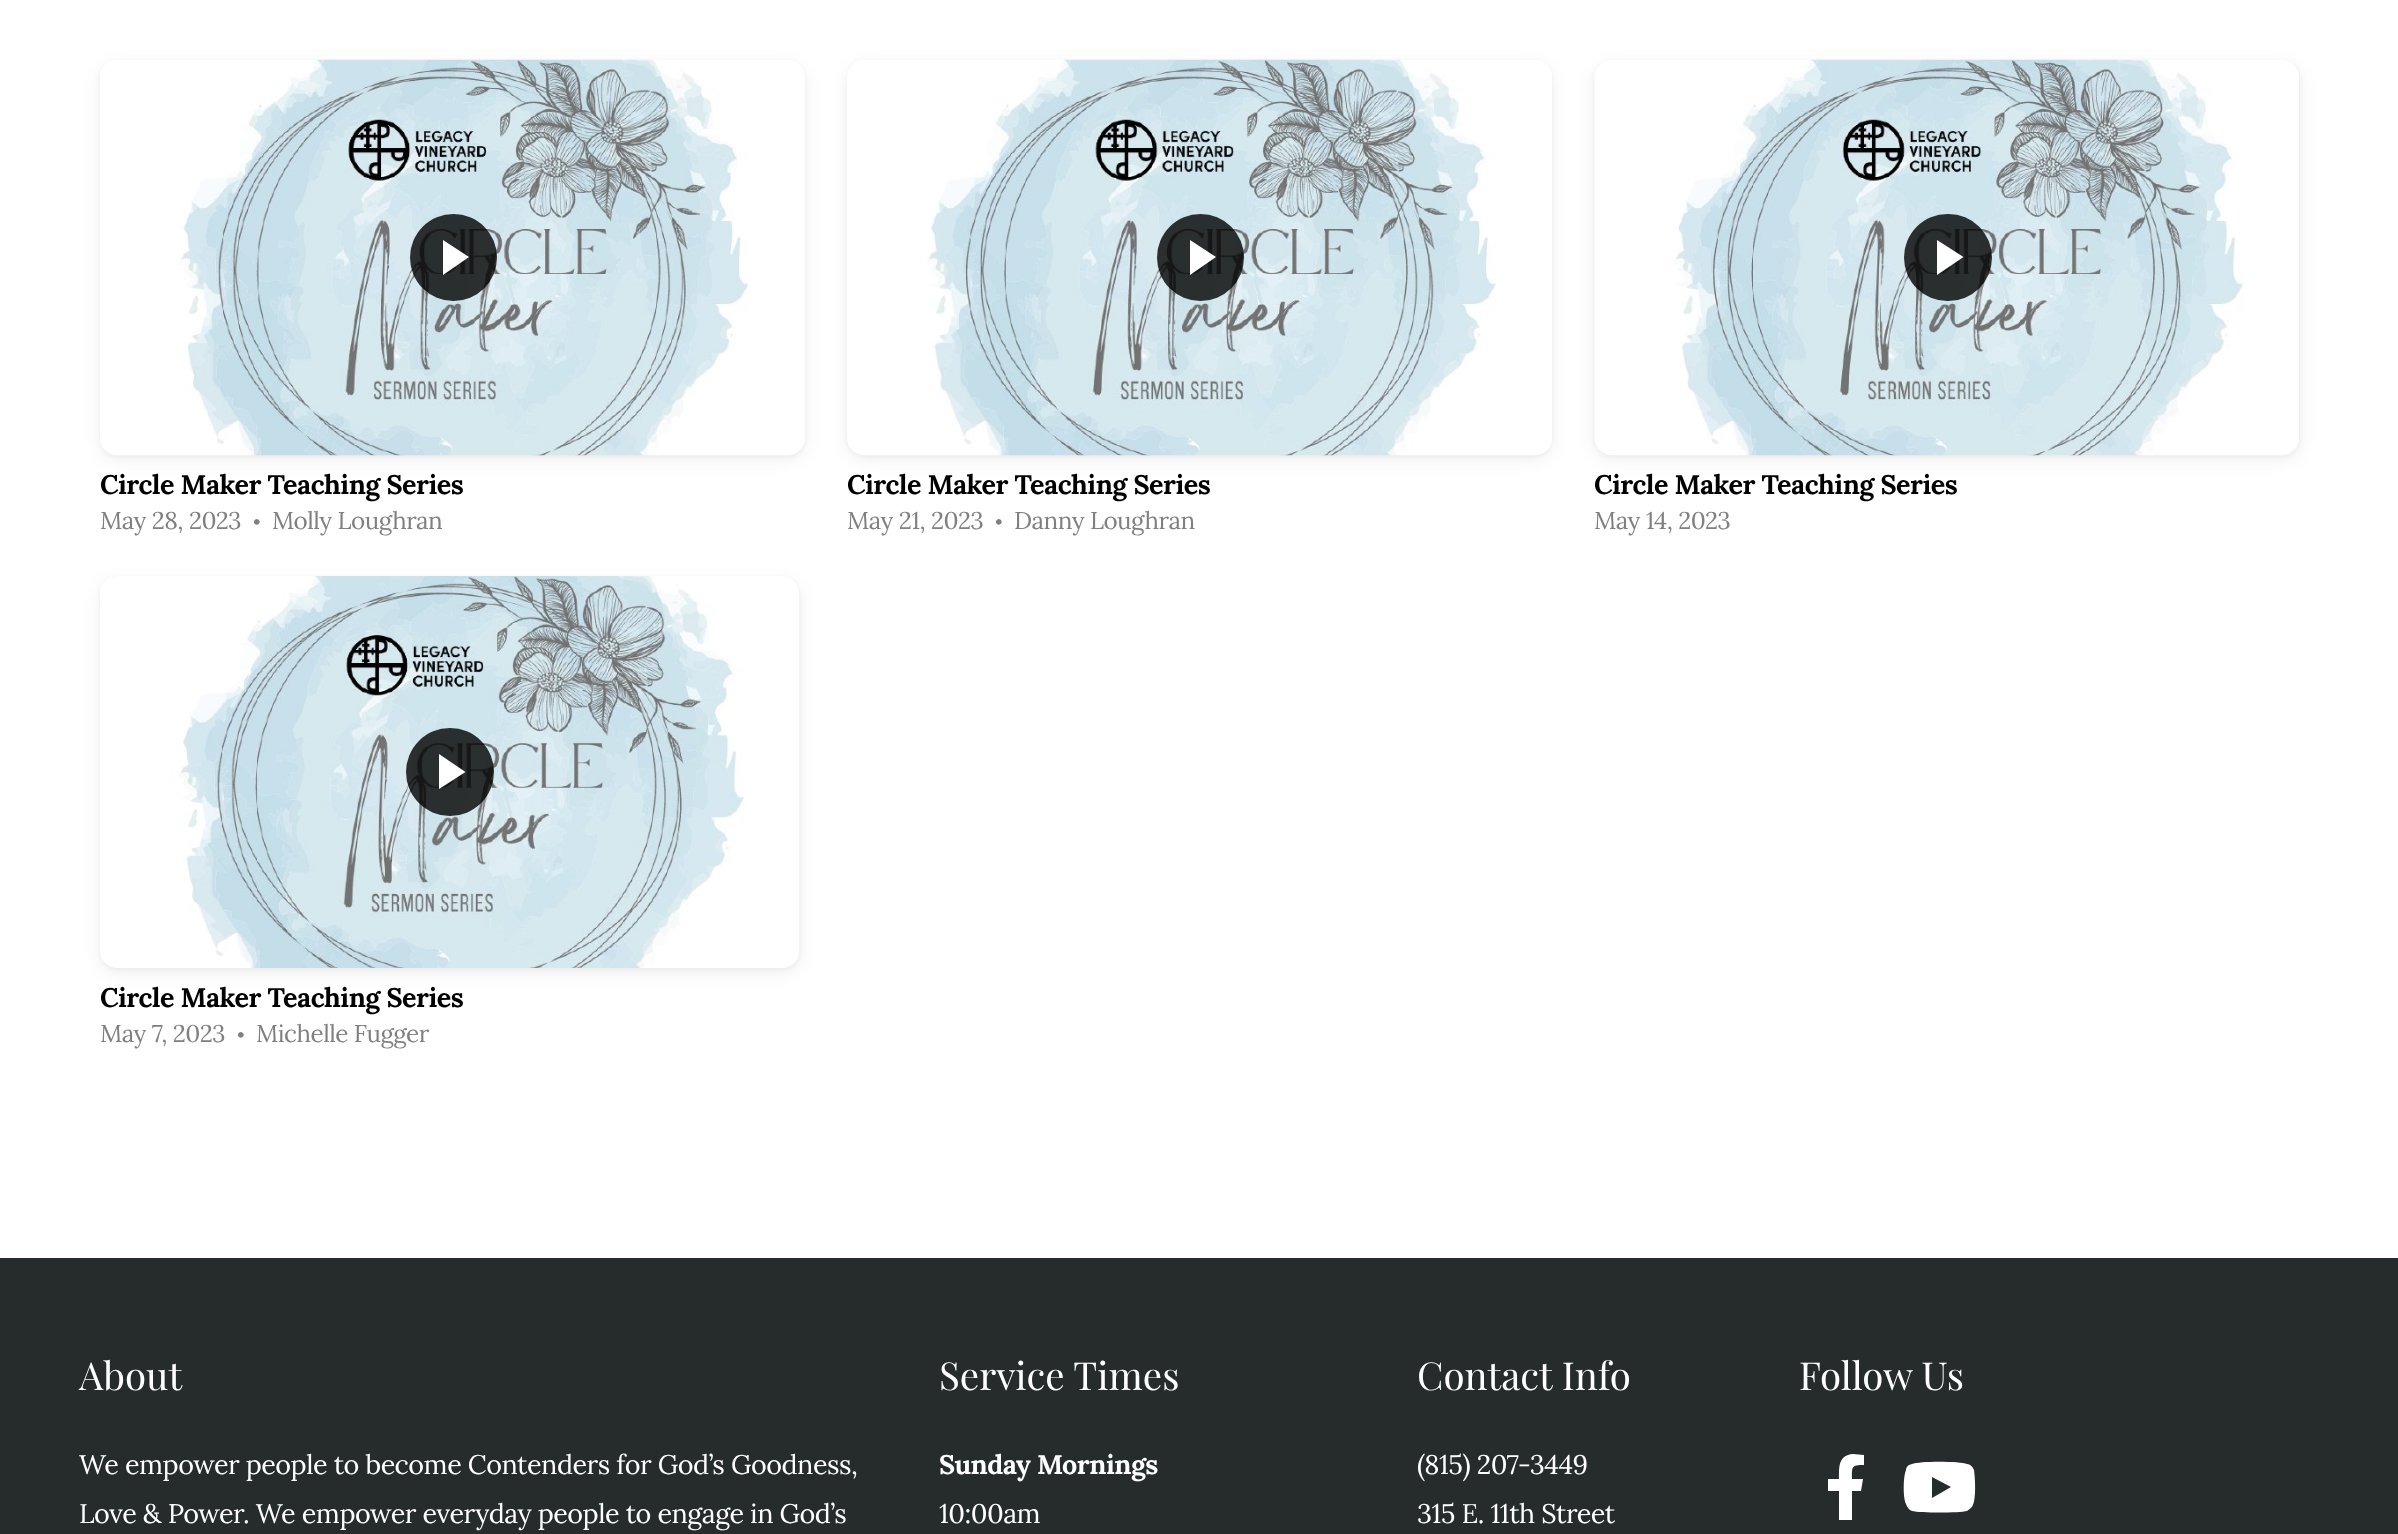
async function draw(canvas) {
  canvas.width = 2398
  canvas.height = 1534
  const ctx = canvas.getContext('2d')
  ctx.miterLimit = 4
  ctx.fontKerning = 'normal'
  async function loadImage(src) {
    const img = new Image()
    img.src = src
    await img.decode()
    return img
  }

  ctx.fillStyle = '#fff'
  ctx.fillRect(0, 0, 2398, 1534)
  ctx.fillStyle = '#0000000a'
  ctx.filter = 'blur(2px)'
  ctx.beginPath()
  ctx.roundRect(100, 61, 705, 396, 18)
  ctx.fill()
  ctx.filter = 'none'
  ctx.fillStyle = '#0000000f'
  ctx.filter = 'blur(9px)'
  ctx.beginPath()
  ctx.roundRect(100, 65, 705, 395, 18)
  ctx.fill()
  ctx.filter = 'none'
  ctx.drawImage(await loadImage('image0.png'), 100, 59, 705, 397)
  ctx.fillStyle = '#000000cc'
  ctx.beginPath()
  ctx.arc(453.5, 257.5, 43.5, 0, 2 * Math.PI)
  ctx.fill()
  ctx.fillStyle = '#fff'
  ctx.beginPath()
  ctx.moveTo(443, 275)
  ctx.lineTo(443, 240)
  ctx.lineTo(469, 257)
  ctx.closePath()
  ctx.fill()
  ctx.letterSpacing = '-0.5px'
  ctx.font = 'bold 26.95px Lora'
  ctx.fillStyle = '#000'
  ctx.fillText('Circle Maker Teaching Series', 100, 494)
  ctx.font = '24.25px Lora'
  ctx.fillStyle = '#808080'
  ctx.fillText('May 28, 2023', 100, 529)
  ctx.font = '19px Lora'
  ctx.fillText('•', 253, 529)
  ctx.font = '24.25px Lora'
  ctx.fillText('Molly Loughran', 272, 529)
  ctx.fillStyle = '#0000000a'
  ctx.filter = 'blur(2px)'
  ctx.beginPath()
  ctx.roundRect(847, 61, 705, 396, 18)
  ctx.fill()
  ctx.filter = 'none'
  ctx.fillStyle = '#0000000f'
  ctx.filter = 'blur(9px)'
  ctx.beginPath()
  ctx.roundRect(847, 65, 705, 395, 18)
  ctx.fill()
  ctx.filter = 'none'
  ctx.drawImage(await loadImage('image1.png'), 847, 59, 705, 397)
  ctx.fillStyle = '#000000cc'
  ctx.beginPath()
  ctx.arc(1200.5, 257.5, 43.5, 0, 2 * Math.PI)
  ctx.fill()
  ctx.fillStyle = '#fff'
  ctx.beginPath()
  ctx.moveTo(1190, 275)
  ctx.lineTo(1190, 240)
  ctx.lineTo(1216, 257)
  ctx.closePath()
  ctx.fill()
  ctx.font = 'bold 26.95px Lora'
  ctx.fillStyle = '#000'
  ctx.fillText('Circle Maker Teaching Series', 847, 494)
  ctx.font = '24.25px Lora'
  ctx.fillStyle = '#808080'
  ctx.fillText('May 21, 2023', 847, 529)
  ctx.font = '19px Lora'
  ctx.fillText('•', 995, 529)
  ctx.font = '24.25px Lora'
  ctx.fillText('Danny Loughran', 1014, 529)
  ctx.fillStyle = '#0000000a'
  ctx.filter = 'blur(2px)'
  ctx.beginPath()
  ctx.roundRect(1594, 61, 706, 396, 18)
  ctx.fill()
  ctx.filter = 'none'
  ctx.fillStyle = '#0000000f'
  ctx.filter = 'blur(9px)'
  ctx.beginPath()
  ctx.roundRect(1594, 65, 706, 395, 18)
  ctx.fill()
  ctx.filter = 'none'
  ctx.fillStyle = '#dae6eb'
  ctx.beginPath()
  ctx.roundRect(1594, 60, 706, 395, 18)
  ctx.fill()
  ctx.drawImage(await loadImage('image2.png'), 1594, 59, 706, 397)
  ctx.fillStyle = '#000000cc'
  ctx.beginPath()
  ctx.roundRect(1904, 214, 88, 87, 43.5)
  ctx.fill()
  ctx.fillStyle = '#fff'
  ctx.beginPath()
  ctx.moveTo(1937, 275)
  ctx.lineTo(1937, 240)
  ctx.lineTo(1963.5, 257)
  ctx.closePath()
  ctx.fill()
  ctx.font = 'bold 26.95px Lora'
  ctx.fillStyle = '#000'
  ctx.fillText('Circle Maker Teaching Series', 1594, 494)
  ctx.font = '24.25px Lora'
  ctx.fillStyle = '#808080'
  ctx.fillText('May 14, 2023', 1594, 529)
  ctx.fillStyle = '#0000000a'
  ctx.filter = 'blur(2px)'
  ctx.beginPath()
  ctx.roundRect(100, 578, 700, 392, 18)
  ctx.fill()
  ctx.filter = 'none'
  ctx.fillStyle = '#0000000f'
  ctx.filter = 'blur(9px)'
  ctx.beginPath()
  ctx.roundRect(100, 581, 700, 392, 18)
  ctx.fill()
  ctx.filter = 'none'
  ctx.fillStyle = '#dae6eb'
  ctx.beginPath()
  ctx.roundRect(100, 576, 700, 392, 18)
  ctx.fill()
  ctx.drawImage(await loadImage('image3.png'), 100, 576, 700, 392)
  ctx.fillStyle = '#000000cc'
  ctx.beginPath()
  ctx.arc(450, 772, 44, 0, 2 * Math.PI)
  ctx.fill()
  ctx.fillStyle = '#fff'
  ctx.beginPath()
  ctx.moveTo(439, 789)
  ctx.lineTo(439, 754)
  ctx.lineTo(465.5, 772)
  ctx.closePath()
  ctx.fill()
  ctx.font = 'bold 26.95px Lora'
  ctx.fillStyle = '#000'
  ctx.fillText('Circle Maker Teaching Series', 100, 1007)
  ctx.font = '24.25px Lora'
  ctx.fillStyle = '#808080'
  ctx.fillText('May 7, 2023', 100, 1042)
  ctx.font = '19px Lora'
  ctx.fillText('•', 237, 1042)
  ctx.font = '24.25px Lora'
  ctx.fillText('Michelle Fugger', 256, 1042)
  ctx.fillStyle = '#262b2c'
  ctx.fillRect(0, 1258, 2398, 276)
  ctx.letterSpacing = '0px'
  ctx.font = '38.5px Playfair Display'
  ctx.fillStyle = '#fff'
  ctx.fillText('About', 79, 1390)
  ctx.letterSpacing = '-0.5px'
  ctx.font = '26.95px Lora'
  ctx.fillText('We empower people to become Contenders for God’s Goodness,', 79, 1474)
  ctx.fillText('Love & Power. We empower everyday people to engage in God’s', 79, 1523)
  ctx.letterSpacing = '0px'
  ctx.font = '38.5px Playfair Display'
  ctx.fillText('Service Times', 939, 1390)
  ctx.letterSpacing = '-0.5px'
  ctx.font = 'bold 26.95px Lora'
  ctx.fillText('Sunday Mornings', 939, 1474)
  ctx.font = '26.95px Lora'
  ctx.fillText('10:00am', 939, 1523)
  ctx.letterSpacing = '0px'
  ctx.font = '38.5px Playfair Display'
  ctx.fillText('Contact Info', 1417, 1390)
  ctx.letterSpacing = '-0.5px'
  ctx.font = '26.95px Lora'
  ctx.fillText('(815) 207-3449', 1417, 1474)
  ctx.fillText('315 E. 11th Street', 1417, 1523)
  ctx.letterSpacing = '0px'
  ctx.font = '38.5px Playfair Display'
  ctx.fillText('Follow Us', 1799, 1390)
  ctx.beginPath()
  ctx.moveTo(1861, 1491)
  ctx.lineTo(1863, 1479)
  ctx.lineTo(1852, 1479)
  ctx.bezierCurveTo(1852, 1467, 1851, 1465, 1864, 1465)
  ctx.lineTo(1864, 1455)
  ctx.lineTo(1853, 1454)
  ctx.bezierCurveTo(1838, 1455, 1839, 1468, 1839, 1479)
  ctx.lineTo(1828, 1479)
  ctx.lineTo(1828, 1491)
  ctx.lineTo(1839, 1491)
  ctx.lineTo(1839, 1520)
  ctx.lineTo(1852, 1520)
  ctx.lineTo(1852, 1491)
  ctx.closePath()
  ctx.fill()
  ctx.beginPath()
  ctx.moveTo(1974, 1470)
  ctx.bezierCurveTo(1973, 1467, 1970, 1464, 1967, 1464)
  ctx.bezierCurveTo(1960, 1461, 1919, 1461, 1912, 1464)
  ctx.lineTo(1909, 1465)
  ctx.bezierCurveTo(1907, 1466, 1906, 1468, 1906, 1470)
  ctx.bezierCurveTo(1903, 1477, 1903, 1498, 1906, 1504)
  ctx.bezierCurveTo(1907, 1507, 1909, 1510, 1912, 1511)
  ctx.bezierCurveTo(1920, 1513, 1959, 1513, 1967, 1511)
  ctx.lineTo(1971, 1508)
  ctx.bezierCurveTo(1977, 1503, 1975, 1477, 1974, 1470)
  ctx.closePath()
  ctx.moveTo(1932, 1498)
  ctx.lineTo(1932, 1477)
  ctx.lineTo(1951, 1487)
  ctx.closePath()
  ctx.fill()
}

draw(document.querySelector('canvas'))
